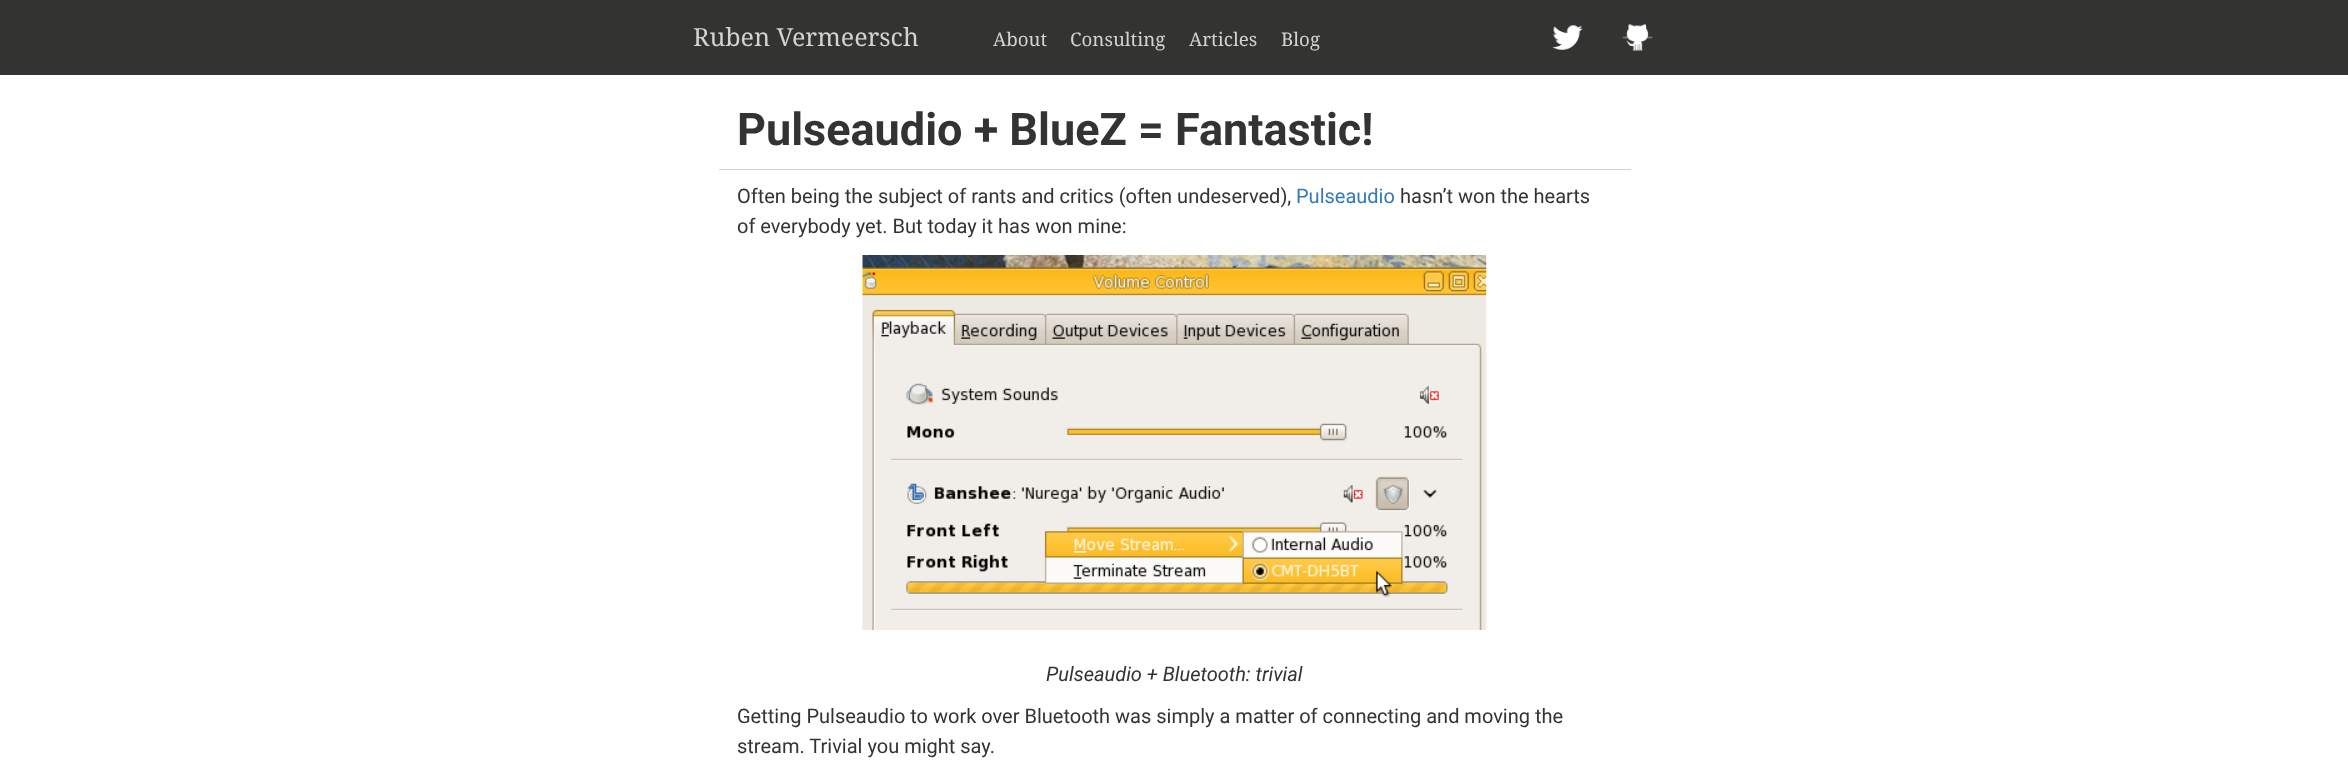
<!DOCTYPE html>
<meta charset="utf-8">
<style>body { margin: 0 } canvas { display: block }</style>
<canvas id="canvas" width="2348" height="777"></canvas>
<img id="img1" src="images/1.png" hidden>
<img id="img2" src="images/2.png" hidden>
<img id="img3" src="images/3.png" hidden>
<script>
window.onload = function () {
    const canvas = document.getElementById('canvas');
    const context = canvas.getContext('2d');
    context.miterLimit = 4;
    context.fontKerning = 'normal';

    context.fillStyle = 'rgb(51, 51, 50)';
    context.fillRect(0, 0, 2348, 777);
    context.drawImage(document.getElementById('img1'), 1552, 25, 31, 25);
    context.drawImage(document.getElementById('img2'), 1622, 24, 31, 27);
    context.fillStyle = 'rgb(255, 255, 255)';
    context.fillRect(0, 75, 2348, 702);
    context.fillStyle = 'rgb(212, 212, 206)';
    context.fillRect(719, 169, 912, 1);
    context.drawImage(document.getElementById('img3'), 862, 255, 625, 375);
    context.font = '25px Noto Serif';
    context.fillText('Ruben Vermeersch', 693, 46);
    context.font = '18.75px Noto Serif';
    context.fillText('About', 993, 46);
    context.fillText('Consulting', 1070, 46);
    context.fillText('Articles', 1189, 46);
    context.fillText('Blog', 1281, 46);
    context.font = 'bold 45px Roboto';
    context.fillStyle = 'rgb(51, 51, 51)';
    context.fillText('Pulseaudio + BlueZ = Fantastic!', 737, 145);
    context.font = '20px Roboto';
    context.fillText('Often being the subject of rants and critics (often undeserved),', 737, 203);
    context.fillStyle = 'rgb(51, 122, 183)';
    context.fillText('Pulseaudio', 1296, 203);
    context.fillStyle = 'rgb(51, 51, 51)';
    context.fillText('hasn’t won the hearts', 1400, 203);
    context.fillText('of everybody yet. But today it has won mine:', 737, 233);
    context.font = 'italic 20px Roboto';
    context.fillText('Pulseaudio + Bluetooth: trivial', 1046, 681);
    context.font = '20px Roboto';
    context.fillText('Getting Pulseaudio to work over Bluetooth was simply a matter of connecting and moving the', 737, 723);
    context.fillText('stream. Trivial you might say.', 737, 753);
};
</script>
